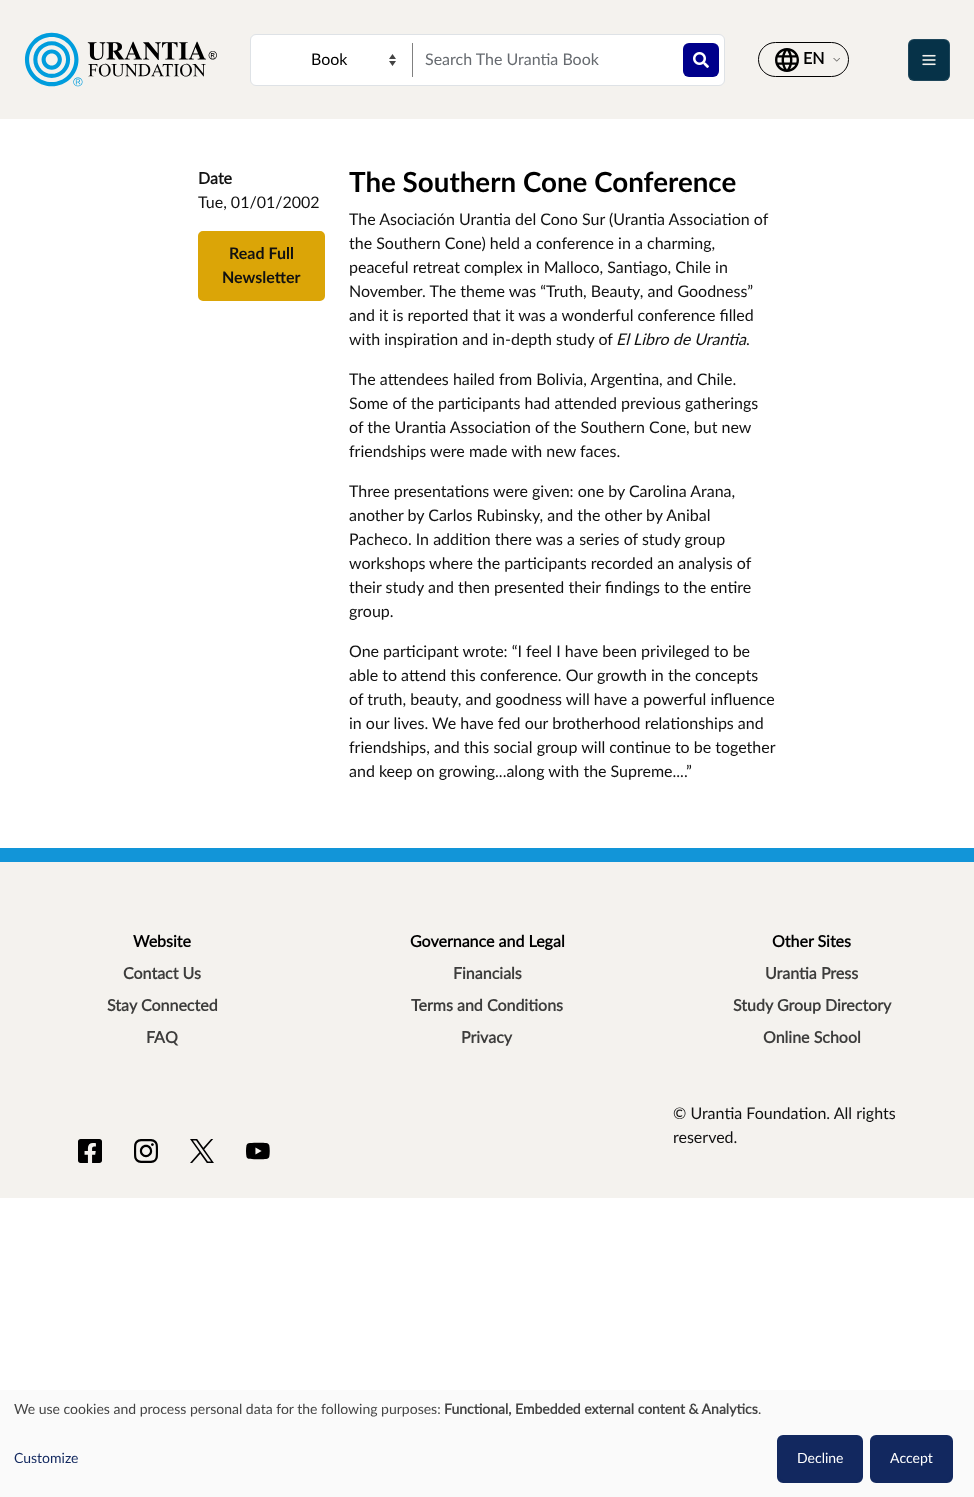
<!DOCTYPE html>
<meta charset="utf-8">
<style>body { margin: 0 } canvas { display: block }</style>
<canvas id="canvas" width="974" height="1497"></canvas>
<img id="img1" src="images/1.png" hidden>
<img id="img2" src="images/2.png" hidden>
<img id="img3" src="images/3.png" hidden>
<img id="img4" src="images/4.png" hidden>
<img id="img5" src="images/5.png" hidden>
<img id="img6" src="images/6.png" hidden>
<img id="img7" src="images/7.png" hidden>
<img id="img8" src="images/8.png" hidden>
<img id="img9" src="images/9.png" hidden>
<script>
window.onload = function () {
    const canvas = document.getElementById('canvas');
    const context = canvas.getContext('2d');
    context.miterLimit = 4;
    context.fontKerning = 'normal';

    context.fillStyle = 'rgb(255, 255, 255)';
    context.fillRect(0, 0, 974, 1497);
    context.fillStyle = 'rgb(244, 242, 238)';
    context.fillRect(0, 0, 974, 119);
    context.drawImage(document.getElementById('img1'), 24, 32, 193, 55);
    context.fillStyle = 'rgb(255, 255, 255)';
    context.beginPath();
    context.roundRect(250.5, 34.5, 474, 51, 5.5);
    context.fill();
    context.strokeStyle = 'rgb(222, 226, 230)';
    context.stroke();
    context.fillStyle = 'rgb(68, 68, 68)';
    context.beginPath();
    context.moveTo(389, 59);
    context.lineTo(392.5, 54);
    context.lineTo(396, 59);
    context.closePath();
    context.moveTo(396, 61);
    context.lineTo(392.5, 66);
    context.lineTo(389, 61);
    context.closePath();
    context.fill();
    context.fillStyle = 'rgb(128, 128, 128)';
    context.fillRect(412, 43, 1, 34);
    context.fillStyle = 'rgb(0, 0, 139)';
    context.beginPath();
    context.roundRect(683, 43, 36, 34, 6);
    context.fill();
    context.drawImage(document.getElementById('img2'), 693, 52, 16, 16);
    context.beginPath();
    context.roundRect(758.5, 42.5, 90, 34, 17);
    context.strokeStyle = 'rgb(0, 0, 0)';
    context.stroke();
    context.drawImage(document.getElementById('img3'), 775, 48, 24, 24);
    context.drawImage(document.getElementById('img4'), 833, 58, 7, 4);
    context.fillStyle = 'rgb(6, 50, 72)';
    context.beginPath();
    context.roundRect(908, 39, 42, 42, 6);
    context.fill();
    context.beginPath();
    context.roundRect(908.5, 39.5, 41, 41, 5.5);
    context.strokeStyle = 'rgba(255, 255, 255, 0.1)';
    context.stroke();
    context.drawImage(document.getElementById('img5'), 922, 54, 14, 12);
    context.fillStyle = 'rgb(219, 165, 7)';
    context.beginPath();
    context.roundRect(199, 232, 125, 68, 4);
    context.fill();
    context.strokeStyle = 'rgb(219, 165, 7)';
    context.lineWidth = 2;
    context.stroke();
    context.fillStyle = 'rgb(244, 242, 238)';
    context.fillRect(0, 862, 974, 336);
    context.fillStyle = 'rgb(18, 149, 216)';
    context.fillRect(0, 848, 974, 14);
    context.drawImage(document.getElementById('img6'), 78, 1139, 24, 24);
    context.drawImage(document.getElementById('img7'), 134, 1139, 24, 24);
    context.drawImage(document.getElementById('img8'), 190, 1139, 24, 24);
    context.drawImage(document.getElementById('img9'), 246, 1142, 24, 18);
    context.fillStyle = 'rgb(250, 250, 250)';
    context.fillRect(0, 1390, 974, 107);
    context.fillStyle = 'rgb(18, 40, 95)';
    context.beginPath();
    context.roundRect(778.5, 1436.5, 83, 45, 4.5);
    context.fill();
    context.strokeStyle = 'rgb(18, 40, 95)';
    context.lineWidth = 3;
    context.stroke();
    context.beginPath();
    context.roundRect(871.5, 1436.5, 80, 45, 4.5);
    context.fill();
    context.stroke();
    context.font = '16px Lato';
    context.fillStyle = 'rgb(0, 0, 0)';
    context.fillText('Book', 311, 65);
    context.fillStyle = 'rgb(103, 107, 112)';
    context.fillText('Search The Urantia Book', 425, 65);
    context.font = 'bold 16px Lato';
    context.fillStyle = 'rgb(0, 0, 0)';
    context.fillText('EN', 803, 64);
    context.fillStyle = 'rgb(17, 17, 17)';
    context.fillText('Date', 198, 184);
    context.font = '16px Lato';
    context.fillText('Tue, 01/01/2002', 198, 208);
    context.font = 'bold 16px "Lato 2"';
    context.fillText('Read Full', 229, 259);
    context.fillText('Newsletter', 222, 283);
    context.font = 'bold 27.75px "Lato 2"';
    context.fillStyle = 'rgb(0, 0, 0)';
    context.fillText('The Southern Cone Conference', 349, 192);
    context.font = '16px Lato';
    context.fillStyle = 'rgb(17, 17, 17)';
    context.fillText('The Asociación Urantia del Cono Sur (Urantia Association of', 349, 225);
    context.fillText('the Southern Cone) held a conference in a charming,', 349, 249);
    context.fillText('peaceful retreat complex in Malloco, Santiago, Chile in', 349, 273);
    context.fillText('November. The theme was “Truth, Beauty, and Goodness”', 349, 297);
    context.fillText('and it is reported that it was a wonderful conference filled', 349, 321);
    context.fillText('with inspiration and in-depth study of', 349, 345);
    context.font = 'italic 16px Lato';
    context.fillText('El Libro de Urantia', 616, 345);
    context.font = '16px Lato';
    context.fillText('.', 746, 345);
    context.fillText('The attendees hailed from Bolivia, Argentina, and Chile.', 349, 385);
    context.fillText('Some of the participants had attended previous gatherings', 349, 409);
    context.fillText('of the Urantia Association of the Southern Cone, but new', 349, 433);
    context.fillText('friendships were made with new faces.', 349, 457);
    context.fillText('Three presentations were given: one by Carolina Arana,', 349, 497);
    context.fillText('another by Carlos Rubinsky, and the other by Anibal', 349, 521);
    context.fillText('Pacheco. In addition there was a series of study group', 349, 545);
    context.fillText('workshops where the participants recorded an analysis of', 349, 569);
    context.fillText('their study and then presented their findings to the entire', 349, 593);
    context.fillText('group.', 349, 617);
    context.fillText('One participant wrote: “I feel I have been privileged to be', 349, 657);
    context.fillText('able to attend this conference. Our growth in the concepts', 349, 681);
    context.fillText('of truth, beauty, and goodness will have a powerful influence', 349, 705);
    context.fillText('in our lives. We have fed our brotherhood relationships and', 349, 729);
    context.fillText('friendships, and this social group will continue to be together', 349, 753);
    context.fillText('and keep on growing...along with the Supreme....”', 349, 777);
    context.font = 'bold 16px Lato';
    context.fillStyle = 'rgb(0, 0, 0)';
    context.fillText('Website', 133, 947);
    context.fillStyle = 'rgb(61, 61, 60)';
    context.fillText('Contact Us', 123, 979);
    context.fillText('Stay Connected', 107, 1011);
    context.fillText('FAQ', 146, 1043);
    context.fillStyle = 'rgb(0, 0, 0)';
    context.fillText('Governance and Legal', 410, 947);
    context.fillStyle = 'rgb(61, 61, 60)';
    context.fillText('Financials', 453, 979);
    context.fillText('Terms and Conditions', 411, 1011);
    context.fillText('Privacy', 461, 1043);
    context.fillStyle = 'rgb(0, 0, 0)';
    context.fillText('Other Sites', 772, 947);
    context.fillStyle = 'rgb(61, 61, 60)';
    context.fillText('Urantia Press', 765, 979);
    context.fillText('Study Group Directory', 733, 1011);
    context.fillText('Online School', 763, 1043);
    context.font = '16px Lato';
    context.fillStyle = 'rgb(17, 17, 17)';
    context.fillText('© Urantia Foundation. All rights', 673, 1119);
    context.fillText('reserved.', 673, 1143);
    context.font = '14px Lato';
    context.fillStyle = 'rgb(68, 68, 68)';
    context.fillText('We use cookies and process personal data for the following purposes:', 14, 1414);
    context.font = 'bold 14px Lato';
    context.fillText('Functional, Embedded external content & Analytics', 444, 1414);
    context.font = '14px Lato';
    context.fillText('.', 758, 1414);
    context.fillStyle = 'rgb(18, 40, 95)';
    context.fillText('Customize', 14, 1463);
    context.fillStyle = 'rgb(255, 255, 255)';
    context.fillText('Decline', 797, 1463);
    context.fillText('Accept', 890, 1463);
};
</script>
